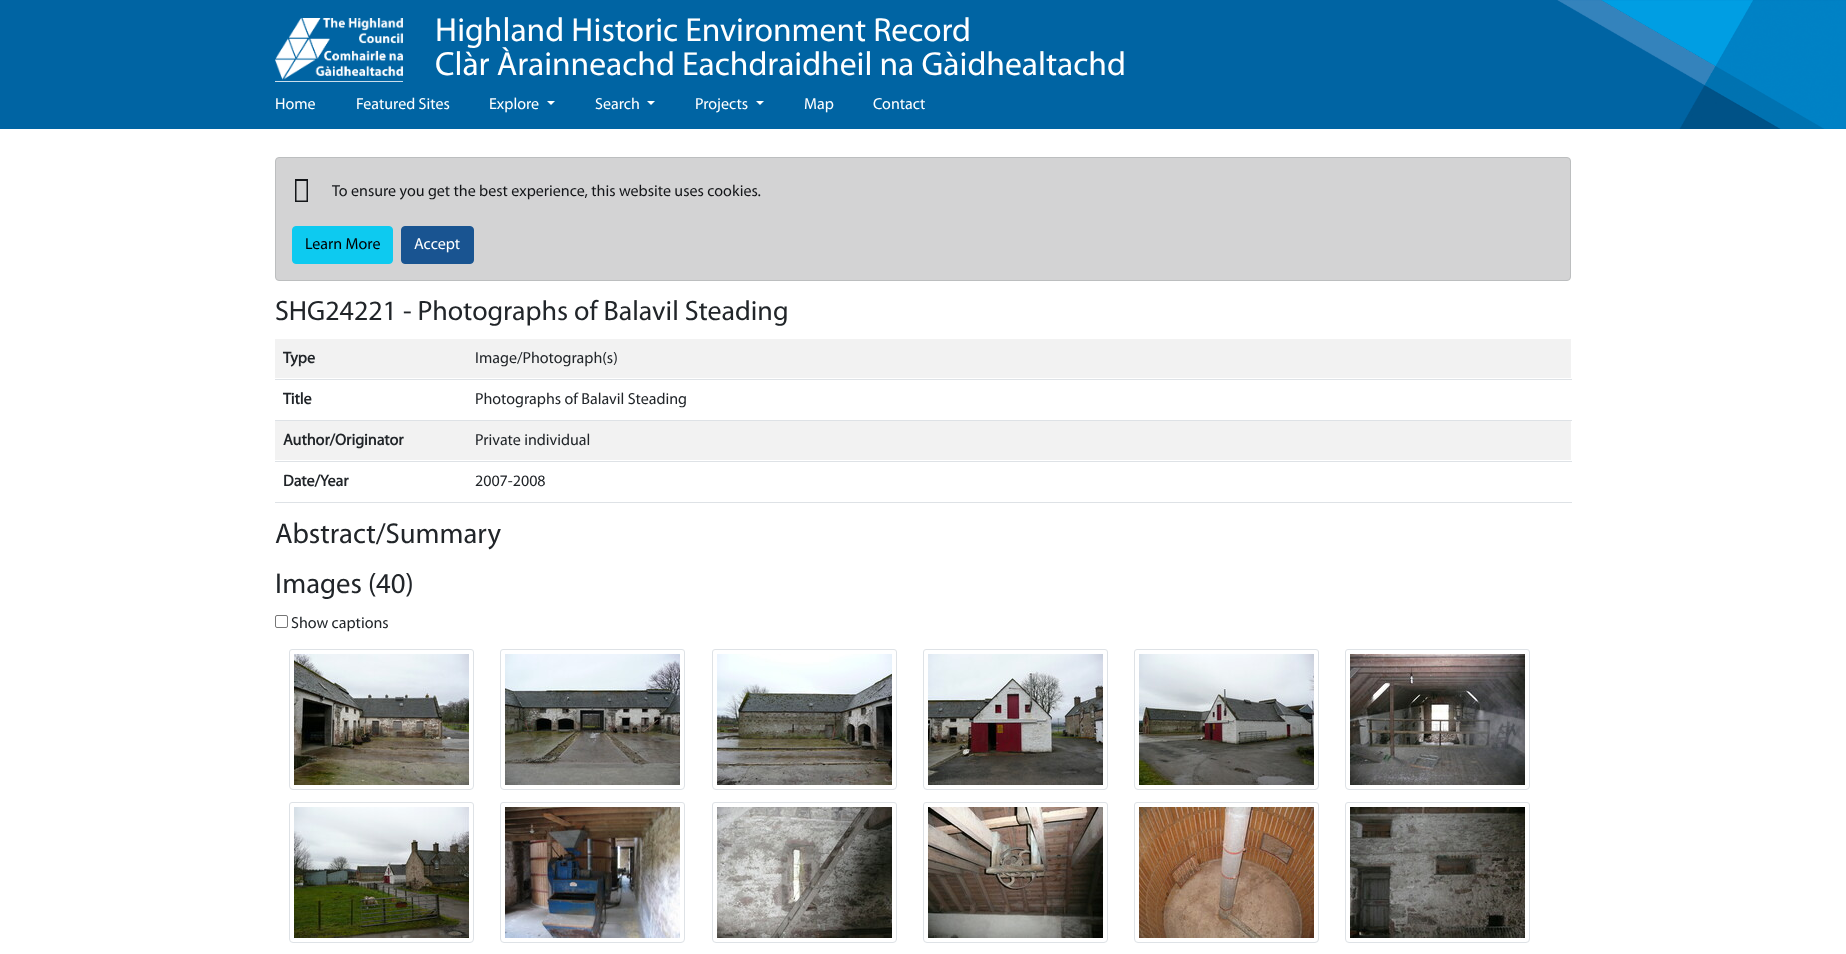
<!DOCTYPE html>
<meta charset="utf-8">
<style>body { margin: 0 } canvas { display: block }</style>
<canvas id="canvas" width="1846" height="954"></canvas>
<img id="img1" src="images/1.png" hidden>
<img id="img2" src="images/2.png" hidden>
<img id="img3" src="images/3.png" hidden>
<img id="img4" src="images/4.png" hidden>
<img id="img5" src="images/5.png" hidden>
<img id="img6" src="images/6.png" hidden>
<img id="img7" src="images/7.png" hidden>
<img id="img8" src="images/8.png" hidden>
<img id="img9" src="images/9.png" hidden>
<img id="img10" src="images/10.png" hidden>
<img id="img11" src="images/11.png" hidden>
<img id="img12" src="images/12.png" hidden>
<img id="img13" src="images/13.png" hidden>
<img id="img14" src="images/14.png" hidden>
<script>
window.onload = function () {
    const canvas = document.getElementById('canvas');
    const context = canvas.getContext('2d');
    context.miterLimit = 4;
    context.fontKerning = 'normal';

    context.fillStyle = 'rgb(255, 255, 255)';
    context.fillRect(0, 0, 1846, 954);
    context.fillStyle = 'rgb(0, 100, 163)';
    context.fillRect(0, 0, 1846, 129);
    context.drawImage(document.getElementById('img1'), 1557, 0, 289, 129);
    context.drawImage(document.getElementById('img2'), 275, 18, 128, 64);
    context.fillStyle = 'rgb(255, 255, 255)';
    context.beginPath();
    context.moveTo(547, 101);
    context.lineTo(555, 101);
    context.lineTo(551, 105);
    context.closePath();
    context.fill();
    context.beginPath();
    context.moveTo(647, 101);
    context.lineTo(655, 101);
    context.lineTo(651, 105);
    context.closePath();
    context.fill();
    context.beginPath();
    context.moveTo(756, 101);
    context.lineTo(764, 101);
    context.lineTo(760, 105);
    context.closePath();
    context.fill();
    context.fillStyle = 'rgb(211, 211, 212)';
    context.beginPath();
    context.roundRect(275.5, 157.5, 1295, 123, 3.5);
    context.fill();
    context.strokeStyle = 'rgb(188, 190, 191)';
    context.stroke();
    context.fillStyle = 'rgb(20, 22, 25)';
    context.beginPath();
    context.moveTo(295, 202);
    context.lineTo(295, 179);
    context.lineTo(308, 179);
    context.lineTo(308, 202);
    context.closePath();
    context.moveTo(296.5, 200.5);
    context.lineTo(306.5, 200.5);
    context.lineTo(306.5, 181);
    context.lineTo(296.5, 181);
    context.closePath();
    context.fill();
    context.fillStyle = 'rgb(13, 202, 240)';
    context.beginPath();
    context.roundRect(292.5, 226.5, 100, 37, 3.5);
    context.fill();
    context.strokeStyle = 'rgb(13, 202, 240)';
    context.stroke();
    context.fillStyle = 'rgb(25, 84, 145)';
    context.beginPath();
    context.roundRect(401.5, 226.5, 72, 37, 3.5);
    context.fill();
    context.strokeStyle = 'rgb(25, 84, 145)';
    context.stroke();
    context.fillStyle = 'rgb(242, 242, 242)';
    context.fillRect(275, 339, 1296, 39);
    context.fillStyle = 'rgb(222, 226, 230)';
    context.fillRect(275, 379, 1297, 1);
    context.fillRect(275, 420, 1297, 1);
    context.fillStyle = 'rgb(242, 242, 242)';
    context.fillRect(275, 421, 1296, 39);
    context.fillStyle = 'rgb(222, 226, 230)';
    context.fillRect(275, 461, 1297, 1);
    context.fillRect(275, 502, 1297, 1);
    context.beginPath();
    context.roundRect(275.5, 615.5, 12, 12, 1.5);
    context.strokeStyle = 'rgb(118, 118, 118)';
    context.stroke();
    context.beginPath();
    context.roundRect(289.5, 649.5, 184, 140, [2.5, 2.5, 3.5, 3.5]);
    context.strokeStyle = 'rgb(222, 226, 230)';
    context.stroke();
    context.drawImage(document.getElementById('img3'), 294, 654, 175, 131);
    context.beginPath();
    context.roundRect(500.5, 649.5, 184, 140, [2.5, 2.5, 3.5, 3.5]);
    context.stroke();
    context.drawImage(document.getElementById('img4'), 505, 654, 175, 131);
    context.beginPath();
    context.roundRect(712.5, 649.5, 184, 140, [2.5, 2.5, 3.5, 3.5]);
    context.stroke();
    context.drawImage(document.getElementById('img5'), 717, 654, 175, 131);
    context.beginPath();
    context.roundRect(923.5, 649.5, 184, 140, [2.5, 2.5, 3.5, 3.5]);
    context.stroke();
    context.drawImage(document.getElementById('img6'), 928, 654, 175, 131);
    context.beginPath();
    context.roundRect(1134.5, 649.5, 184, 140, [2.5, 2.5, 3.5, 3.5]);
    context.stroke();
    context.drawImage(document.getElementById('img7'), 1139, 654, 175, 131);
    context.beginPath();
    context.roundRect(1345.5, 649.5, 184, 140, [2.5, 2.5, 3.5, 3.5]);
    context.stroke();
    context.drawImage(document.getElementById('img8'), 1350, 654, 175, 131);
    context.beginPath();
    context.roundRect(289.5, 802.5, 184, 140, [2.5, 2.5, 3.5, 3.5]);
    context.stroke();
    context.drawImage(document.getElementById('img9'), 294, 807, 175, 131);
    context.beginPath();
    context.roundRect(500.5, 802.5, 184, 140, [2.5, 2.5, 3.5, 3.5]);
    context.stroke();
    context.drawImage(document.getElementById('img10'), 505, 807, 175, 131);
    context.beginPath();
    context.roundRect(712.5, 802.5, 184, 140, [2.5, 2.5, 3.5, 3.5]);
    context.stroke();
    context.drawImage(document.getElementById('img11'), 717, 807, 175, 131);
    context.beginPath();
    context.roundRect(923.5, 802.5, 184, 140, [2.5, 2.5, 3.5, 3.5]);
    context.stroke();
    context.drawImage(document.getElementById('img12'), 928, 807, 175, 131);
    context.beginPath();
    context.roundRect(1134.5, 802.5, 184, 140, [2.5, 2.5, 3.5, 3.5]);
    context.stroke();
    context.drawImage(document.getElementById('img13'), 1139, 807, 175, 131);
    context.beginPath();
    context.roundRect(1345.5, 802.5, 184, 140, [2.5, 2.5, 3.5, 3.5]);
    context.stroke();
    context.drawImage(document.getElementById('img14'), 1350, 807, 175, 131);
    context.font = '33.6px Myriad';
    context.fillStyle = 'rgb(255, 255, 255)';
    context.fillText('Highland Historic Environment Record', 435, 41);
    context.fillText('Clàr Àrainneachd Eachdraidheil na Gàidhealtachd', 435, 75);
    context.font = '16px Myriad';
    context.fillText('Home', 275, 109);
    context.fillText('Featured Sites', 356, 109);
    context.fillText('Explore', 489, 109);
    context.fillText('Search', 595, 109);
    context.fillText('Projects', 695, 109);
    context.fillText('Map', 804, 109);
    context.fillText('Contact', 873, 109);
    context.fillStyle = 'rgb(20, 22, 25)';
    context.fillText('To ensure you get the best experience, this website uses cookies.', 332, 196);
    context.fillStyle = 'rgb(0, 0, 0)';
    context.fillText('Learn More', 305, 249);
    context.fillStyle = 'rgb(255, 255, 255)';
    context.fillText('Accept', 414, 249);
    context.font = '28px Myriad';
    context.fillStyle = 'rgb(33, 37, 41)';
    context.fillText('SHG24221 - Photographs of Balavil Steading', 275, 320);
    context.font = 'bold 16px Myriad';
    context.fillText('Type', 283, 363);
    context.font = '16px Myriad';
    context.fillText('Image/Photograph(s)', 475, 363);
    context.font = 'bold 16px Myriad';
    context.fillText('Title', 283, 404);
    context.font = '16px Myriad';
    context.fillText('Photographs of Balavil Steading', 475, 404);
    context.font = 'bold 16px Myriad';
    context.fillText('Author/Originator', 283, 445);
    context.font = '16px Myriad';
    context.fillText('Private individual', 475, 445);
    context.font = 'bold 16px Myriad';
    context.fillText('Date/Year', 283, 486);
    context.font = '16px Myriad';
    context.fillText('2007-2008', 475, 486);
    context.font = '28.75px Myriad';
    context.fillText('Abstract/Summary', 275, 543);
    context.fillText('Images (40)', 275, 593);
    context.font = '16px Myriad';
    context.fillText('Show captions', 291, 628);
};
</script>
